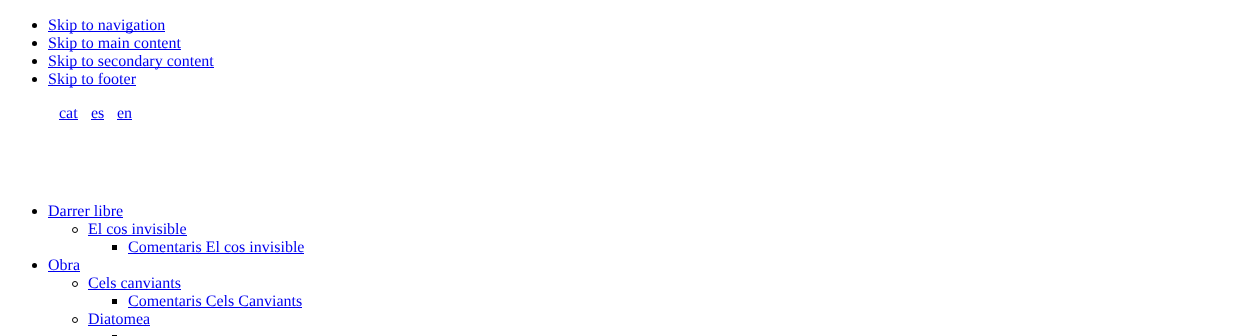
<!DOCTYPE html>
<meta charset="utf-8">
<style>body { margin: 0 } canvas { display: block }</style>
<canvas id="canvas" width="1237" height="336"></canvas>
<script>
window.onload = function () {
    const canvas = document.getElementById('canvas');
    const context = canvas.getContext('2d');
    context.miterLimit = 4;
    context.fontKerning = 'normal';

    context.fillStyle = 'rgb(255, 255, 255)';
    context.fillRect(0, 0, 1237, 336);
    context.fillStyle = 'rgb(0, 0, 0)';
    context.beginPath();
    context.arc(34.5, 25.5, 2.5, 0, 2 * Math.PI);
    context.fill();
    context.fillStyle = 'rgb(0, 0, 238)';
    context.fillRect(48, 31, 117, 1);
    context.fillStyle = 'rgb(0, 0, 0)';
    context.beginPath();
    context.arc(34.5, 43.5, 2.5, 0, 2 * Math.PI);
    context.fill();
    context.fillStyle = 'rgb(0, 0, 238)';
    context.fillRect(48, 49, 133, 1);
    context.fillStyle = 'rgb(0, 0, 0)';
    context.beginPath();
    context.arc(34.5, 61.5, 2.5, 0, 2 * Math.PI);
    context.fill();
    context.fillStyle = 'rgb(0, 0, 238)';
    context.fillRect(48, 67, 166, 1);
    context.fillStyle = 'rgb(0, 0, 0)';
    context.beginPath();
    context.arc(34.5, 79.5, 2.5, 0, 2 * Math.PI);
    context.fill();
    context.fillStyle = 'rgb(0, 0, 238)';
    context.fillRect(48, 85, 88, 1);
    context.fillRect(59, 119, 19, 1);
    context.fillRect(91, 119, 13, 1);
    context.fillRect(117, 119, 15, 1);
    context.fillStyle = 'rgb(0, 0, 0)';
    context.beginPath();
    context.arc(34.5, 211.5, 2.5, 0, 2 * Math.PI);
    context.fill();
    context.fillStyle = 'rgb(0, 0, 238)';
    context.fillRect(48, 217, 75, 1);
    context.beginPath();
    context.arc(75, 230, 2.5, 0, 2 * Math.PI);
    context.strokeStyle = 'rgb(0, 0, 0)';
    context.stroke();
    context.fillRect(88, 235, 99, 1);
    context.fillStyle = 'rgb(0, 0, 0)';
    context.fillRect(112, 245, 5, 5);
    context.fillStyle = 'rgb(0, 0, 238)';
    context.fillRect(128, 253, 176, 1);
    context.fillStyle = 'rgb(0, 0, 0)';
    context.beginPath();
    context.arc(34.5, 265.5, 2.5, 0, 2 * Math.PI);
    context.fill();
    context.fillStyle = 'rgb(0, 0, 238)';
    context.fillRect(48, 271, 32, 1);
    context.beginPath();
    context.arc(75, 284, 2.5, 0, 2 * Math.PI);
    context.stroke();
    context.fillRect(88, 289, 93, 1);
    context.fillStyle = 'rgb(0, 0, 0)';
    context.fillRect(112, 299, 5, 5);
    context.fillStyle = 'rgb(0, 0, 238)';
    context.fillRect(128, 307, 174, 1);
    context.beginPath();
    context.arc(75, 320, 2.5, 0, 2 * Math.PI);
    context.stroke();
    context.fillRect(88, 325, 62, 1);
    context.fillStyle = 'rgb(0, 0, 0)';
    context.fillRect(112, 335, 5, 1);
    context.font = '16px Liberation Serif';
    context.fillStyle = 'rgb(0, 0, 238)';
    context.fillText('Skip to navigation', 48, 30);
    context.fillText('Skip to main content', 48, 48);
    context.fillText('Skip to secondary content', 48, 66);
    context.fillText('Skip to footer', 48, 84);
    context.fillText('cat', 59, 118);
    context.fillText('es', 91, 118);
    context.fillText('en', 117, 118);
    context.fillText('Darrer libre', 48, 216);
    context.fillText('El cos invisible', 88, 234);
    context.fillText('Comentaris El cos invisible', 128, 252);
    context.fillText('Obra', 48, 270);
    context.fillText('Cels canviants', 88, 288);
    context.fillText('Comentaris Cels Canviants', 128, 306);
    context.fillText('Diatomea', 88, 324);
};
</script>
